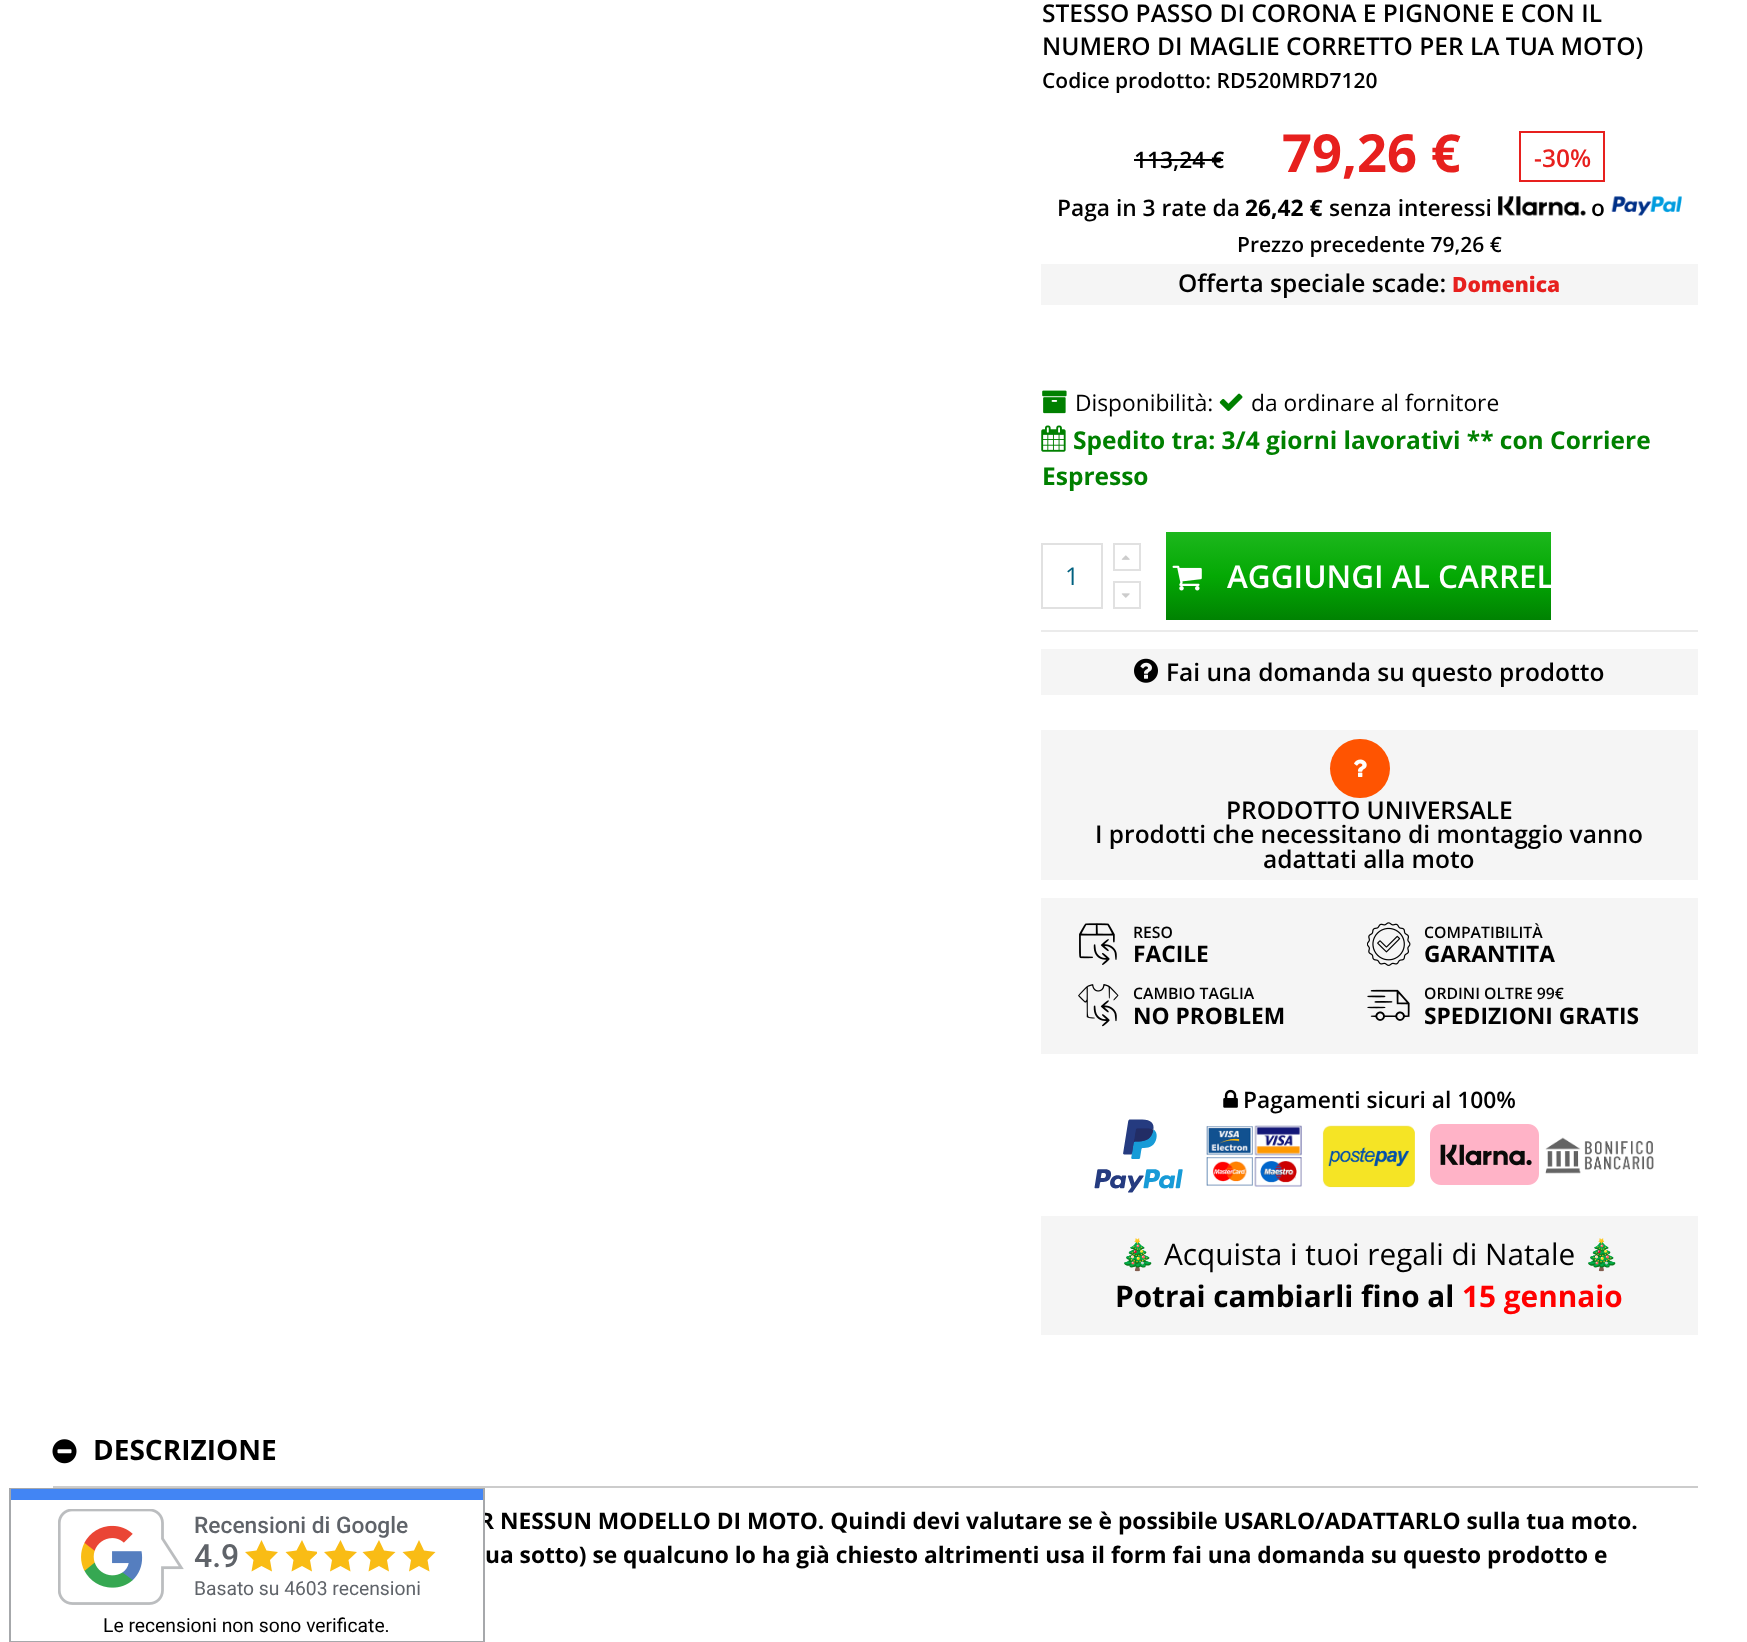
<!DOCTYPE html>
<meta charset="utf-8">
<style>body { margin: 0 } canvas { display: block }</style>
<canvas id="canvas" width="1747" height="1642"></canvas>
<img id="img1" src="images/1.png" hidden>
<img id="img2" src="images/2.png" hidden>
<img id="img3" src="images/3.png" hidden>
<img id="img4" src="images/4.png" hidden>
<img id="img5" src="images/5.png" hidden>
<img id="img6" src="images/6.png" hidden>
<img id="img7" src="images/7.png" hidden>
<img id="img8" src="images/8.png" hidden>
<img id="img9" src="images/9.png" hidden>
<img id="img10" src="images/10.png" hidden>
<img id="img11" src="images/11.png" hidden>
<img id="img12" src="images/12.png" hidden>
<img id="img13" src="images/13.png" hidden>
<img id="img14" src="images/14.png" hidden>
<img id="img15" src="images/15.png" hidden>
<img id="img16" src="images/16.png" hidden>
<img id="img17" src="images/17.png" hidden>
<img id="img18" src="images/18.png" hidden>
<img id="img19" src="images/19.png" hidden>
<img id="img20" src="images/20.png" hidden>
<img id="img21" src="images/21.png" hidden>
<img id="img22" src="images/22.png" hidden>
<script>
window.onload = function () {
    const canvas = document.getElementById('canvas');
    const context = canvas.getContext('2d');
    context.miterLimit = 4;
    context.fontKerning = 'normal';
    let gradient;

    context.fillStyle = 'rgb(255, 255, 255)';
    context.fillRect(0, 0, 1747, 1642);
    context.fillStyle = 'rgb(0, 0, 0)';
    context.fillRect(1134, 159, 89, 2);
    context.strokeStyle = 'rgb(231, 32, 30)';
    context.lineWidth = 2;
    context.strokeRect(1520, 132, 84, 49);
    context.drawImage(document.getElementById('img1'), 1498, 196, 88, 20);
    context.drawImage(document.getElementById('img2'), 1611, 196, 71, 20);
    context.fillStyle = 'rgb(245, 245, 245)';
    context.fillRect(1041, 264, 657, 41);
    context.drawImage(document.getElementById('img3'), 1042, 390, 25, 24);
    context.drawImage(document.getElementById('img4'), 1219, 393, 24, 18);
    context.drawImage(document.getElementById('img5'), 1041, 425, 25, 27);
    context.fillStyle = 'rgb(235, 235, 235)';
    context.fillRect(1041, 630, 657, 2);
    context.strokeStyle = 'rgb(225, 225, 225)';
    context.strokeRect(1042, 544, 60, 64);
    context.strokeRect(1114, 544, 26, 26);
    context.drawImage(document.getElementById('img6'), 1121, 555, 9, 5);
    context.strokeRect(1114, 582, 26, 26);
    context.drawImage(document.getElementById('img7'), 1121, 593, 9, 5);
    gradient = context.createLinearGradient(1358, 532, 1358, 620);
    gradient.addColorStop(0, 'rgb(29, 183, 29)');
    gradient.addColorStop(0.5, 'rgb(4, 169, 4)');
    gradient.addColorStop(1, 'rgb(0, 130, 2)');
    context.fillStyle = gradient;
    context.fillRect(1166, 532, 385, 88);
    context.drawImage(document.getElementById('img8'), 1172, 565, 30, 26);
    context.fillStyle = 'rgb(245, 245, 245)';
    context.fillRect(1041, 649, 657, 46);
    context.drawImage(document.getElementById('img9'), 1134, 658, 24, 25);
    context.fillRect(1041, 730, 657, 150);
    context.fillStyle = 'rgb(255, 84, 1)';
    context.beginPath();
    context.roundRect(1330, 739, 60, 59, 29.5);
    context.fill();
    context.drawImage(document.getElementById('img10'), 1354, 759, 13, 18);
    context.fillStyle = 'rgb(245, 245, 245)';
    context.fillRect(1041, 898, 657, 156);
    context.drawImage(document.getElementById('img11'), 1079, 923, 38, 42);
    context.drawImage(document.getElementById('img12'), 1367, 922, 44, 44);
    context.drawImage(document.getElementById('img13'), 1078, 984, 41, 43);
    context.drawImage(document.getElementById('img14'), 1367, 989, 43, 32);
    context.drawImage(document.getElementById('img15'), 1223, 1089, 15, 19);
    context.drawImage(document.getElementById('img16'), 1094, 1119, 89, 74);
    context.drawImage(document.getElementById('img17'), 1206, 1125, 96, 62);
    context.drawImage(document.getElementById('img18'), 1322, 1125, 93, 63);
    context.drawImage(document.getElementById('img19'), 1430, 1124, 109, 61);
    context.drawImage(document.getElementById('img20'), 1545, 1137, 109, 37);
    context.fillRect(1041, 1216, 657, 119);
    context.fillStyle = 'rgb(204, 204, 204)';
    context.fillRect(53, 1486, 1645, 2);
    context.drawImage(document.getElementById('img21'), 52, 1439, 25, 25);
    context.font = '600 24.5px Open Sans';
    context.fillStyle = 'rgb(0, 0, 0)';
    context.fillText('STESSO PASSO DI CORONA E PIGNONE E CON IL', 1042, 22);
    context.fillText('NUMERO DI MAGLIE CORRETTO PER LA TUA MOTO)', 1042, 55);
    context.font = '600 21px Open Sans';
    context.fillText('Codice prodotto: RD520MRD7120', 1042, 88);
    context.font = '600 22.75px Open Sans';
    context.fillText('113,24 €', 1134, 168);
    context.font = 'bold 52.5px Open Sans';
    context.fillStyle = 'rgb(231, 32, 30)';
    context.fillText('79,26 €', 1282, 172);
    context.font = '600 24.5px Open Sans';
    context.fillText('-30%', 1534, 167);
    context.font = '600 22.75px Open Sans';
    context.fillStyle = 'rgb(0, 0, 0)';
    context.fillText('Paga in 3 rate da', 1057, 216);
    context.font = 'bold 22.75px Open Sans';
    context.fillText('26,42 €', 1245, 216);
    context.font = '600 22.75px Open Sans';
    context.fillText('senza interessi', 1329, 216);
    context.fillText('o', 1591, 216);
    context.font = '600 21px Open Sans';
    context.fillText('Prezzo precedente 79,26 €', 1237, 252);
    context.font = '600 24.5px Open Sans';
    context.fillText('Offerta speciale scade:', 1178, 292);
    context.font = '800 21px Open Sans';
    context.fillStyle = 'rgb(231, 32, 30)';
    context.fillText('Domenica', 1452, 292);
    context.font = '22.75px Open Sans';
    context.fillStyle = 'rgb(0, 0, 0)';
    context.fillText('Disponibilità:', 1075, 411);
    context.fillText('da ordinare al fornitore', 1251, 411);
    context.font = 'bold 24.5px Open Sans';
    context.fillStyle = 'rgb(0, 128, 0)';
    context.fillText('Spedito tra: 3/4 giorni lavorativi ** con Corriere', 1073, 449);
    context.fillText('Espresso', 1042, 485);
    context.font = '24.5px Open Sans';
    context.fillStyle = 'rgb(0, 96, 127)';
    context.fillText('1', 1065, 585);
    context.font = '600 31.5px Open Sans';
    context.fillStyle = 'rgb(255, 255, 255)';
    context.fillText('AGGIUNGI AL CARREL', 1227, 588);
    context.font = '600 24.5px Open Sans';
    context.fillStyle = 'rgb(0, 0, 0)';
    context.fillText('Fai una domanda su questo prodotto', 1166, 681);
    context.fillText('PRODOTTO UNIVERSALE', 1226, 819);
    context.fillText('I prodotti che necessitano di montaggio vanno', 1095, 843);
    context.fillText('adattati alla moto', 1263, 868);
    context.font = '600 15.75px Open Sans';
    context.fillText('RESO', 1133, 938);
    context.font = 'bold 22.75px Open Sans';
    context.fillText('FACILE', 1133, 962);
    context.font = '600 15.75px Open Sans';
    context.fillText('COMPATIBILITÀ', 1424, 938);
    context.font = 'bold 22.75px Open Sans';
    context.fillText('GARANTITA', 1424, 962);
    context.font = '600 15.75px Open Sans';
    context.fillText('CAMBIO TAGLIA', 1133, 999);
    context.font = 'bold 22.75px Open Sans';
    context.fillText('NO PROBLEM', 1133, 1024);
    context.font = '600 15.75px Open Sans';
    context.fillText('ORDINI OLTRE 99€', 1424, 999);
    context.font = 'bold 22.75px Open Sans';
    context.fillText('SPEDIZIONI GRATIS', 1424, 1024);
    context.font = '600 22.75px Open Sans';
    context.fillText('Pagamenti sicuri al 100%', 1243, 1108);
    context.font = '29.75px Noto Color Emoji';
    context.fillText('🎄', 1119, 1265);
    context.font = '29.75px Open Sans';
    context.fillText('Acquista i tuoi regali di Natale', 1164, 1265);
    context.font = '29.75px Noto Color Emoji';
    context.fillText('🎄', 1583, 1265);
    context.font = 'bold 29.75px Open Sans';
    context.fillText('Potrai cambiarli fino al', 1115, 1307);
    context.fillStyle = 'rgb(255, 0, 0)';
    context.fillText('15 gennaio', 1462, 1307);
    context.font = 'bold 28px Open Sans';
    context.fillStyle = 'rgb(0, 0, 0)';
    context.fillText('DESCRIZIONE', 93, 1460);
    context.font = 'bold 22.75px Open Sans';
    context.fillText('R NESSUN MODELLO DI MOTO. Quindi devi valutare se è possibile USARLO/ADATTARLO sulla tua moto.', 479, 1529);
    context.fillText('ua sotto) se qualcuno lo ha già chiesto altrimenti usa il form fai una domanda su questo prodotto e', 485, 1563);
    context.strokeStyle = 'rgb(166, 168, 171)';
    context.strokeRect(10, 1489, 474, 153);
    context.fillStyle = 'rgb(255, 255, 255)';
    context.fillRect(481, 1512, 2, 17);
    context.fillStyle = 'rgb(66, 133, 244)';
    context.fillRect(11, 1489, 472, 11);
    context.drawImage(document.getElementById('img22'), 58, 1509, 126, 96);
    context.font = '500 22.75px Roboto';
    context.fillStyle = 'rgb(95, 99, 105)';
    context.fillText('Recensioni di Google', 194, 1533);
    context.font = '500 32px Roboto';
    context.fillText('4.9', 194, 1567);
    context.fillStyle = 'rgb(249, 188, 21)';
    context.beginPath();
    context.moveTo(261.5, 1540);
    context.lineTo(266.5, 1550.5);
    context.lineTo(278, 1552);
    context.lineTo(270, 1560);
    context.lineTo(272, 1571.5);
    context.lineTo(261.5, 1566);
    context.lineTo(251.5, 1571.5);
    context.lineTo(253.5, 1560);
    context.lineTo(245, 1552);
    context.lineTo(256.5, 1550.5);
    context.closePath();
    context.fill();
    context.save();
    context.beginPath();
    context.rect(285, 1540, 32, 32);
    context.clip();
    context.beginPath();
    context.moveTo(302, 1540);
    context.lineTo(307, 1550.5);
    context.lineTo(318.5, 1552);
    context.lineTo(310, 1560);
    context.lineTo(312, 1571.5);
    context.lineTo(302, 1566);
    context.lineTo(291.5, 1571.5);
    context.lineTo(293.5, 1560);
    context.lineTo(285.5, 1552);
    context.lineTo(296.5, 1550.5);
    context.closePath();
    context.fill();
    context.restore();
    context.beginPath();
    context.moveTo(340.5, 1540);
    context.lineTo(345.5, 1550.5);
    context.lineTo(357, 1552);
    context.lineTo(348.5, 1560);
    context.lineTo(350.5, 1571.5);
    context.lineTo(340.5, 1566);
    context.lineTo(330, 1571.5);
    context.lineTo(332, 1560);
    context.lineTo(324, 1552);
    context.lineTo(335, 1550.5);
    context.closePath();
    context.fill();
    context.beginPath();
    context.moveTo(379, 1540);
    context.lineTo(384, 1550.5);
    context.lineTo(395.5, 1552);
    context.lineTo(387, 1560);
    context.lineTo(389, 1571.5);
    context.lineTo(379, 1566);
    context.lineTo(368.5, 1571.5);
    context.lineTo(370.5, 1560);
    context.lineTo(362.5, 1552);
    context.lineTo(373.5, 1550.5);
    context.closePath();
    context.fill();
    context.beginPath();
    context.moveTo(419, 1540);
    context.lineTo(424, 1550.5);
    context.lineTo(435.5, 1552);
    context.lineTo(427.5, 1560);
    context.lineTo(429.5, 1571.5);
    context.lineTo(419, 1566);
    context.lineTo(409, 1571.5);
    context.lineTo(411, 1560);
    context.lineTo(402.5, 1552);
    context.lineTo(414, 1550.5);
    context.closePath();
    context.fill();
    context.font = '19.3px Roboto';
    context.fillStyle = 'rgb(95, 99, 105)';
    context.fillText('Basato su 4603 recensioni', 194, 1595);
    context.fillStyle = 'rgb(0, 0, 0)';
    context.fillText('Le recensioni non sono verificate.', 103, 1632);
};
</script>
